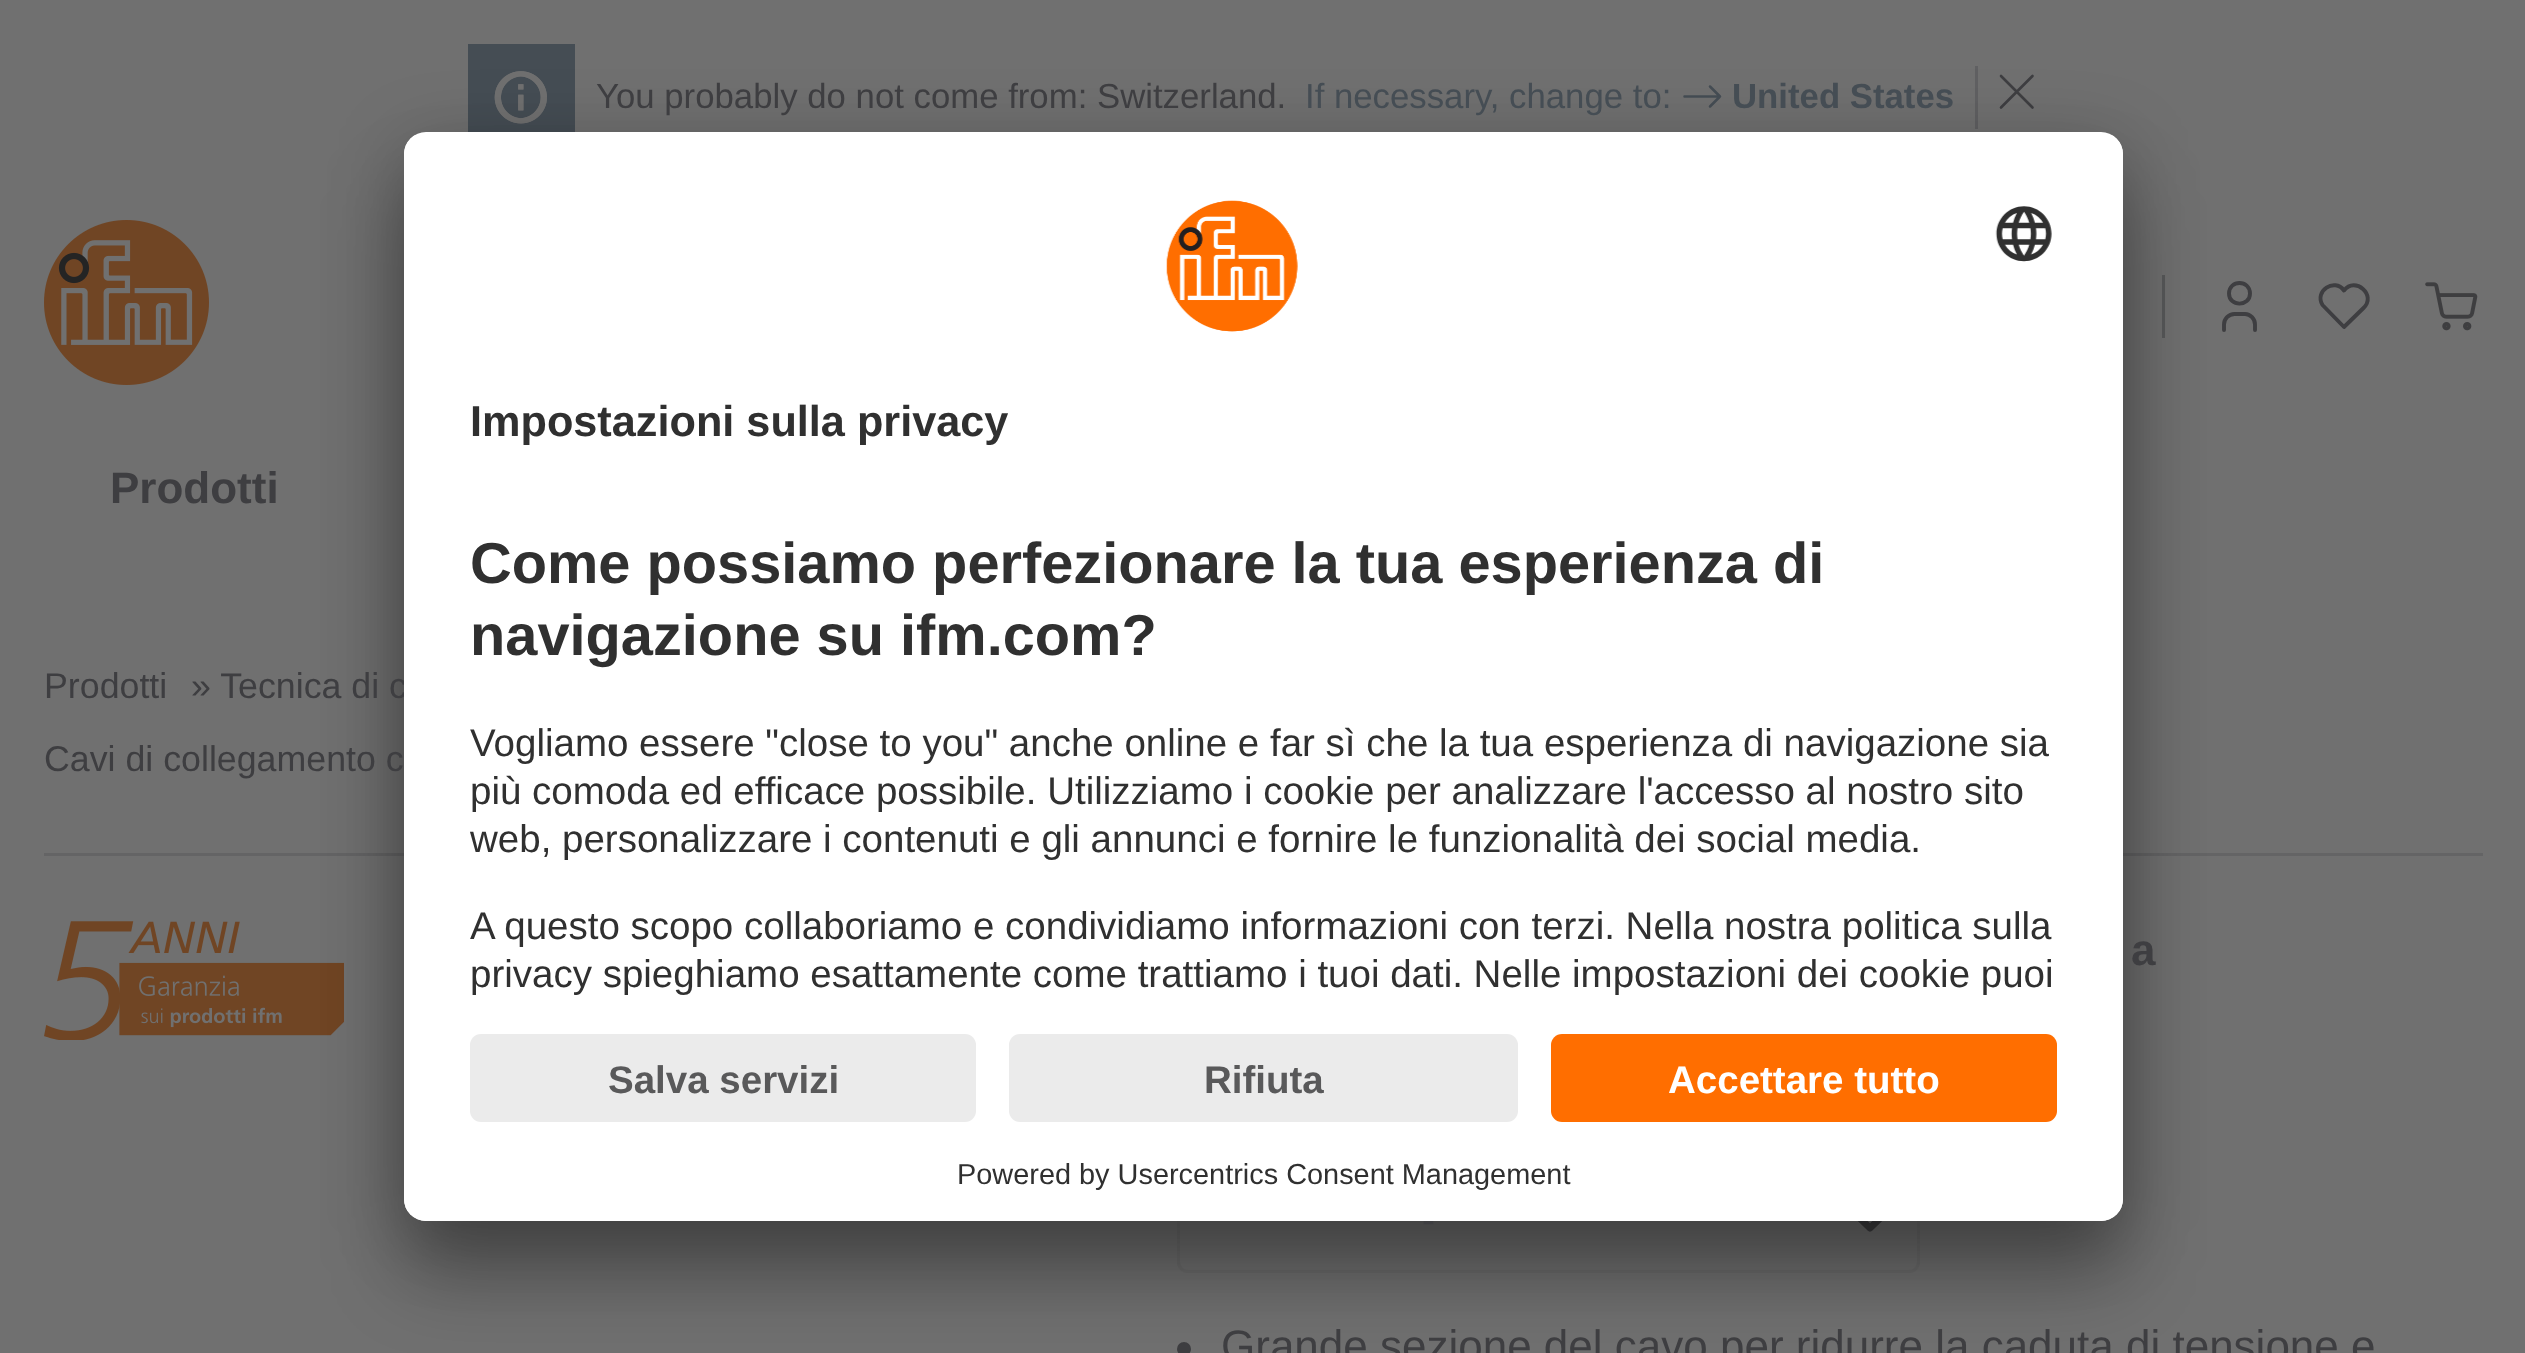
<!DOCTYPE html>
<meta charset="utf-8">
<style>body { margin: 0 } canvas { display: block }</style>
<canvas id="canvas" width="2525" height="1353"></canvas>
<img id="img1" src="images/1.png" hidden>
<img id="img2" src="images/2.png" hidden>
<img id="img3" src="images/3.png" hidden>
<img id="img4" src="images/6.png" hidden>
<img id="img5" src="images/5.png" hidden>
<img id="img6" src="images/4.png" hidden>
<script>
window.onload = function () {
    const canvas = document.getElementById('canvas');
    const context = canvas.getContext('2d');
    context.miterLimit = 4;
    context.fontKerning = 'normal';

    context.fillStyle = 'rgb(112, 112, 112)';
    context.fillRect(0, 0, 2525, 1353);
    context.fillStyle = 'rgb(69, 77, 84)';
    context.fillRect(468, 44, 107, 88);
    context.drawImage(document.getElementById('img1'), 494, 71, 53, 53);
    context.beginPath();
    context.moveTo(1684.5, 96.5);
    context.lineTo(1720, 96.5);
    context.moveTo(1710, 106.5);
    context.lineTo(1720, 96.5);
    context.moveTo(1710, 86.5);
    context.lineTo(1720, 96.5);
    context.strokeStyle = 'rgb(69, 77, 84)';
    context.lineWidth = 2.5;
    context.lineCap = 'round';
    context.lineJoin = 'round';
    context.stroke();
    context.fillStyle = 'rgb(96, 96, 98)';
    context.fillRect(1975, 66, 3, 63);
    context.beginPath();
    context.moveTo(2032.5, 76);
    context.lineTo(2001, 107.5);
    context.moveTo(2001, 76);
    context.lineTo(2032.5, 107.5);
    context.strokeStyle = 'rgb(62, 62, 65)';
    context.lineWidth = 2.6;
    context.stroke();
    context.drawImage(document.getElementById('img2'), 44, 220, 165, 165);
    context.fillStyle = 'rgb(88, 89, 90)';
    context.fillRect(2162, 275, 3, 63);
    context.beginPath();
    context.moveTo(2229, 293.5);
    context.bezierCurveTo(2229, 307, 2250, 307, 2250, 293.5);
    context.bezierCurveTo(2250, 279.5, 2229, 279.5, 2229, 293.5);
    context.moveTo(2224, 330);
    context.lineTo(2224, 324.5);
    context.bezierCurveTo(2224, 319, 2228.5, 314, 2234.5, 314);
    context.lineTo(2245, 314);
    context.bezierCurveTo(2250.5, 314, 2255, 319, 2255, 324.5);
    context.lineTo(2255, 330);
    context.lineWidth = 3.9;
    context.stroke();
    context.beginPath();
    context.moveTo(2363.5, 308);
    context.lineTo(2344, 327);
    context.lineTo(2322.5, 305);
    context.bezierCurveTo(2314, 291, 2334.5, 277.5, 2344, 290.5);
    context.bezierCurveTo(2355, 276, 2377, 295, 2363.5, 308);
    context.stroke();
    context.drawImage(document.getElementById('img3'), 2425, 282, 53, 49);
    context.fillStyle = 'rgb(100, 100, 101)';
    context.fillRect(44, 853, 2439, 3);
    context.drawImage(document.getElementById('img4'), 44, 921, 300, 119);
    context.beginPath();
    context.moveTo(1856, 1214.5);
    context.lineTo(1870, 1228);
    context.lineTo(1884, 1214.5);
    context.lineWidth = 6.9;
    context.stroke();
    context.beginPath();
    context.roundRect(1178.5, 1167.5, 740, 104, 9.5);
    context.strokeStyle = 'rgb(107, 107, 107)';
    context.lineWidth = 3;
    context.lineJoin = 'miter';
    context.stroke();
    context.fillStyle = 'rgb(62, 62, 65)';
    context.beginPath();
    context.arc(1184, 1349, 7, 0, 2 * Math.PI);
    context.fill();
    context.fillStyle = 'rgba(0, 0, 0, 0.3)';
    context.filter = 'blur(38.5px)';
    context.beginPath();
    context.roundRect(404, 187, 1719, 1089, 22);
    context.fill();
    context.filter = 'none';
    context.fillStyle = 'rgba(0, 0, 0, 0.22)';
    context.filter = 'blur(36px)';
    context.beginPath();
    context.roundRect(404, 146, 1719, 1089, 22);
    context.fill();
    context.filter = 'none';
    context.font = '34.75px Liberation Sans';
    context.fillStyle = 'rgb(62, 62, 65)';
    context.fillText('You probably do not come from: Switzerland.', 596, 108);
    context.fillStyle = 'rgb(69, 77, 84)';
    context.fillText('If necessary, change to:', 1305, 108);
    context.font = 'bold 34.75px Liberation Sans';
    context.fillText('United States', 1732, 108);
    context.font = 'bold 44px Liberation Sans';
    context.fillStyle = 'rgb(62, 62, 65)';
    context.fillText('Prodotti', 110, 503);
    context.font = '35.75px Liberation Sans';
    context.fillText('Prodotti', 44, 698);
    context.fillText('» Tecnica di c', 191, 698);
    context.fillStyle = 'rgb(255, 255, 255)';
    context.beginPath();
    context.roundRect(404, 132, 1719, 1089, 22);
    context.fill();
    context.save();
    context.beginPath();
    context.roundRect(404, 132, 1719, 1089, 22);
    context.clip();
    context.beginPath();
    context.roundRect(404, 132, 1719, 880, [22, 22, 0, 0]);
    context.clip();
    context.fillRect(404, 135, 1719, 877);
    context.restore();
    context.drawImage(document.getElementById('img5'), 1995, 206, 57, 56);
    context.drawImage(document.getElementById('img6'), 1166, 200, 132, 132);
    context.font = '38.5px Liberation Sans';
    context.fillStyle = 'rgb(48, 48, 48)';
    context.fillText('privacy spieghiamo esattamente come trattiamo i tuoi dati. Nelle impostazioni dei cookie puoi', 470, 987);
    context.fillText('A questo scopo collaboriamo e condividiamo informazioni con terzi. Nella nostra politica sulla', 470, 939);
    context.fillText('web, personalizzare i contenuti e gli annunci e fornire le funzionalità dei social media.', 470, 852);
    context.fillText('più comoda ed efficace possibile. Utilizziamo i cookie per analizzare l\'accesso al nostro sito', 470, 804);
    context.fillText('Vogliamo essere "close to you" anche online e far sì che la tua esperienza di navigazione sia', 470, 756);
    context.font = 'bold 57.75px Liberation Sans';
    context.fillText('navigazione su ifm.com?', 470, 655);
    context.fillText('Come possiamo perfezionare la tua esperienza di', 470, 583);
    context.font = 'bold 43.25px Liberation Sans';
    context.fillText('Impostazioni sulla privacy', 470, 436);
    context.fillStyle = 'rgb(255, 255, 255)';
    context.beginPath();
    context.roundRect(404, 1012, 1719, 209, [0, 0, 22, 22]);
    context.fill();
    context.font = '28.9px Liberation Sans';
    context.fillStyle = 'rgb(48, 48, 48)';
    context.fillText('Powered by Usercentrics Consent Management', 957, 1184);
    context.fillStyle = 'rgb(255, 110, 0)';
    context.beginPath();
    context.roundRect(1551, 1034, 506, 88, 11);
    context.fill();
    context.font = 'bold 38.5px Liberation Sans';
    context.fillStyle = 'rgb(255, 255, 255)';
    context.fillText('Accettare tutto', 1668, 1093);
    context.fillStyle = 'rgb(235, 235, 235)';
    context.beginPath();
    context.roundRect(1009, 1034, 509, 88, 11);
    context.fill();
    context.fillStyle = 'rgb(89, 89, 90)';
    context.fillText('Rifiuta', 1204, 1093);
    context.fillStyle = 'rgb(235, 235, 235)';
    context.beginPath();
    context.roundRect(470, 1034, 506, 88, 11);
    context.fill();
    context.fillStyle = 'rgb(89, 89, 90)';
    context.fillText('Salva servizi', 608, 1093);
    context.font = '35.75px Liberation Sans';
    context.fillStyle = 'rgb(62, 62, 65)';
    context.fillText('Cavi di collegamento c', 44, 771);
    context.font = 'bold 44px Liberation Sans';
    context.fillText('a', 2131, 965);
    context.font = '39px Liberation Sans';
    context.fillText('-', 1422, 1233);
    context.font = '44px Liberation Sans';
    context.fillText('Grande sezione del cavo per ridurre la caduta di tensione e', 1221, 1361);
};
</script>
